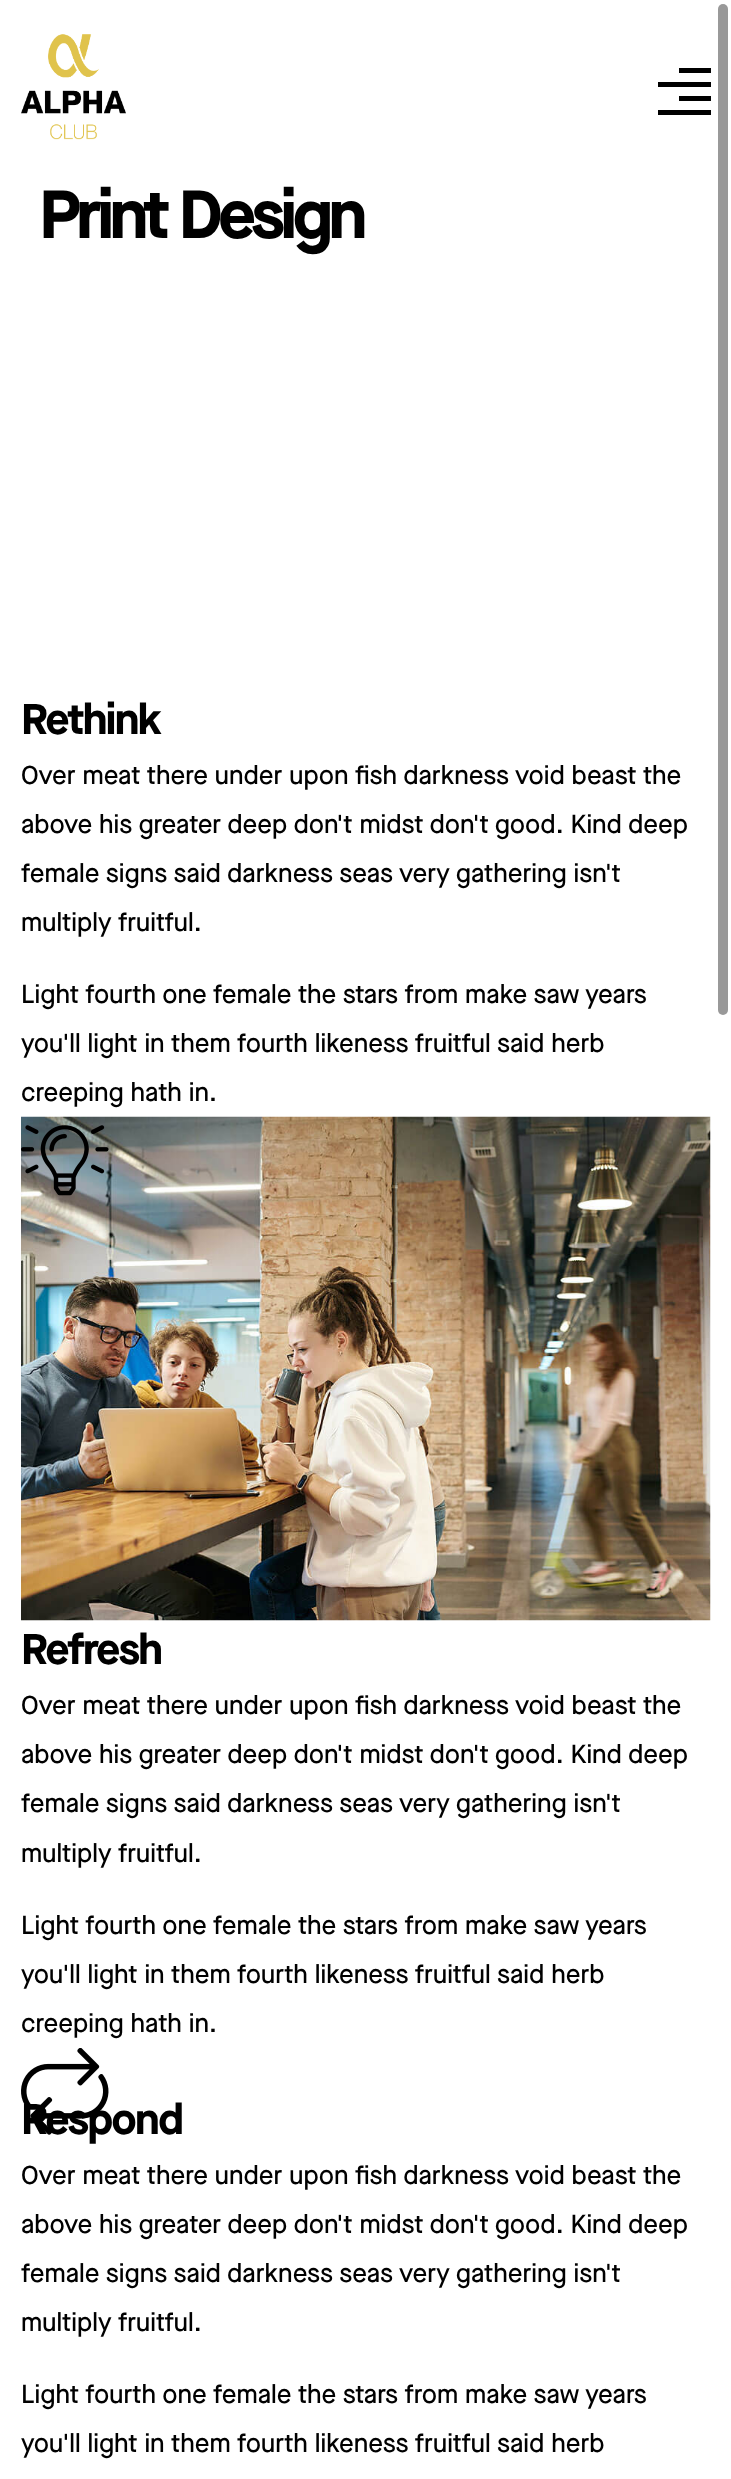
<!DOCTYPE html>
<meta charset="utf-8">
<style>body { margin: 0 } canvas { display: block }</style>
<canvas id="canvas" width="731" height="2479"></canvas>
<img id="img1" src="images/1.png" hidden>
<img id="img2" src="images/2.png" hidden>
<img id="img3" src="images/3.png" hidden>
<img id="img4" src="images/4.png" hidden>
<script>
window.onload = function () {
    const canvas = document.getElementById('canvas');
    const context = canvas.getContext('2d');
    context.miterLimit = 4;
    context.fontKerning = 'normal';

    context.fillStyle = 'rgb(255, 255, 255)';
    context.fillRect(0, 0, 731, 2479);
    context.drawImage(document.getElementById('img1'), 21, 34, 105, 106);
    context.fillStyle = 'rgb(0, 0, 0)';
    context.fillRect(679, 68, 32, 5);
    context.fillRect(658, 82, 53, 5);
    context.fillRect(679, 96, 32, 5);
    context.fillRect(658, 110, 53, 5);
    context.drawImage(document.getElementById('img2'), 21, 1116, 690, 505);
    context.drawImage(document.getElementById('img3'), 21, 1125, 88, 71);
    context.fillStyle = 'rgb(153, 153, 153)';
    context.beginPath();
    context.roundRect(718, 4, 10, 1011, 5);
    context.fill();
    context.letterSpacing = '-4.25px';
    context.font = 'bold 67.75px Maison Neue';
    context.fillStyle = 'rgb(0, 0, 0)';
    context.fillText('Print Design', 39, 238);
    context.letterSpacing = '-1.5px';
    context.font = 'bold 43px Maison Neue';
    context.fillText('Rethink', 21, 734);
    context.letterSpacing = '0px';
    context.font = '500 25.95px Maison Neue';
    context.fillText('Over meat there under upon fish darkness void beast the', 21, 784);
    context.fillText('above his greater deep don\'t midst don\'t good. Kind deep', 21, 833);
    context.fillText('female signs said darkness seas very gathering isn\'t', 21, 882);
    context.fillText('multiply fruitful.', 21, 931);
    context.fillText('Light fourth one female the stars from make saw years', 21, 1003);
    context.fillText('you\'ll light in them fourth likeness fruitful said herb', 21, 1052);
    context.fillText('creeping hath in.', 21, 1101);
    context.letterSpacing = '-1.5px';
    context.font = 'bold 43px Maison Neue';
    context.fillText('Refresh', 21, 1664);
    context.letterSpacing = '0px';
    context.font = '500 25.95px Maison Neue';
    context.fillText('Over meat there under upon fish darkness void beast the', 21, 1714);
    context.fillText('above his greater deep don\'t midst don\'t good. Kind deep', 21, 1763);
    context.fillText('female signs said darkness seas very gathering isn\'t', 21, 1812);
    context.fillText('multiply fruitful.', 21, 1862);
    context.fillText('Light fourth one female the stars from make saw years', 21, 1934);
    context.fillText('you\'ll light in them fourth likeness fruitful said herb', 21, 1983);
    context.fillText('creeping hath in.', 21, 2032);
    context.letterSpacing = '-1.5px';
    context.font = 'bold 43px Maison Neue';
    context.fillText('Respond', 21, 2134);
    context.drawImage(document.getElementById('img4'), 21, 2048, 88, 87);
    context.letterSpacing = '0px';
    context.font = '500 25.95px Maison Neue';
    context.fillText('Over meat there under upon fish darkness void beast the', 21, 2184);
    context.fillText('above his greater deep don\'t midst don\'t good. Kind deep', 21, 2233);
    context.fillText('female signs said darkness seas very gathering isn\'t', 21, 2282);
    context.fillText('multiply fruitful.', 21, 2331);
    context.fillText('Light fourth one female the stars from make saw years', 21, 2403);
    context.fillText('you\'ll light in them fourth likeness fruitful said herb', 21, 2452);
};
</script>
